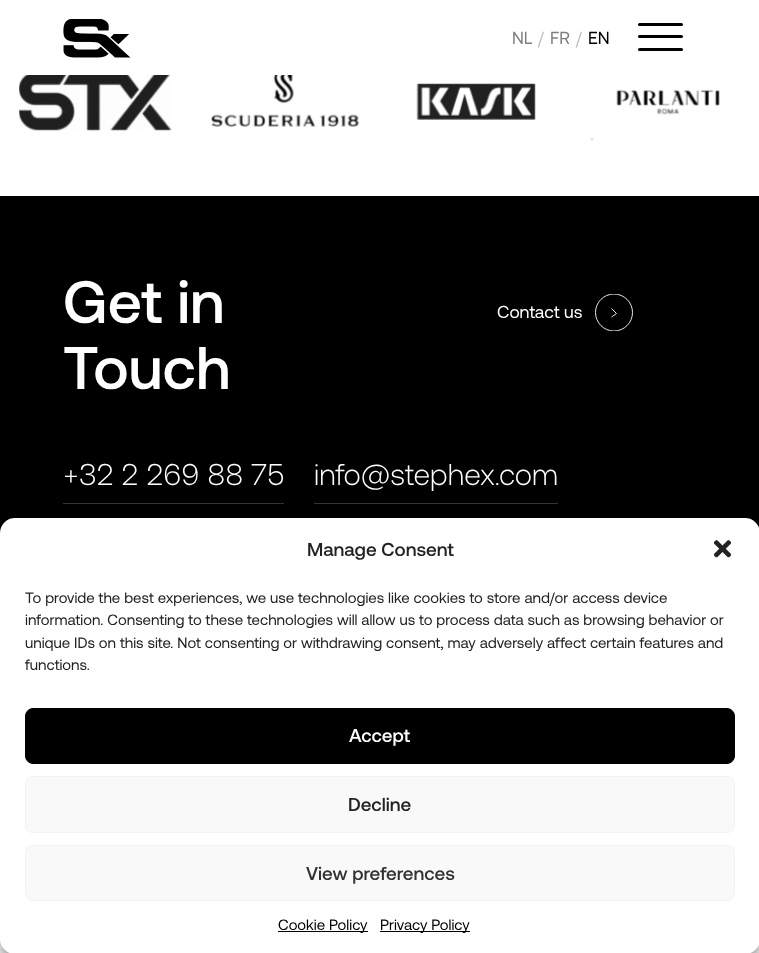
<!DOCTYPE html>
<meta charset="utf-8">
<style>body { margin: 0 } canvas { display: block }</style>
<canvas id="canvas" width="759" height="953"></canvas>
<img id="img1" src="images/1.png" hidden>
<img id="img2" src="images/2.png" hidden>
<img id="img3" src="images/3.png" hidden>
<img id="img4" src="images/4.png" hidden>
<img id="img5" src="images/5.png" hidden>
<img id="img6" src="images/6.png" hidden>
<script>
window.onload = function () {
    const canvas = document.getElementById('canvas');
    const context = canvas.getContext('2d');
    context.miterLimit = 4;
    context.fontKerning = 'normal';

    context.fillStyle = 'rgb(255, 255, 255)';
    context.fillRect(0, 0, 759, 953);
    context.drawImage(document.getElementById('img1'), 63, 19, 68, 39);
    context.fillStyle = 'rgb(0, 0, 0)';
    context.beginPath();
    context.roundRect(638, 23, 45, 3, 1.5);
    context.fill();
    context.beginPath();
    context.roundRect(638, 35, 45, 3, 1.5);
    context.fill();
    context.beginPath();
    context.roundRect(638, 48, 45, 3, 1.5);
    context.fill();
    context.drawImage(document.getElementById('img2'), 19, 75, 153, 56);
    context.drawImage(document.getElementById('img3'), 211, 75, 148, 52);
    context.drawImage(document.getElementById('img4'), 416, 83, 120, 37);
    context.drawImage(document.getElementById('img5'), 590, 89, 130, 52);
    context.fillRect(0, 196, 759, 337);
    context.beginPath();
    context.moveTo(611.5, 308.5);
    context.lineTo(616.5, 313.5);
    context.lineTo(611.5, 317);
    context.strokeStyle = 'rgb(255, 255, 255)';
    context.lineWidth = 0.9;
    context.stroke();
    context.save();
    context.beginPath();
    context.rect(595, 294, 38, 37);
    context.clip();
    context.beginPath();
    context.arc(614, 312.5, 18.5, 0, 2 * Math.PI);
    context.stroke();
    context.restore();
    context.fillStyle = 'rgb(51, 51, 51)';
    context.fillRect(63, 503, 221, 1);
    context.fillRect(314, 503, 244, 1);
    context.fillStyle = 'rgba(0, 0, 0, 0.23)';
    context.filter = 'blur(4px)';
    context.beginPath();
    context.roundRect(0, 525, 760, 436, 15);
    context.fill();
    context.filter = 'none';
    context.fillStyle = 'rgba(0, 0, 0, 0.19)';
    context.filter = 'blur(12.5px)';
    context.beginPath();
    context.roundRect(0, 530, 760, 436, 15);
    context.fill();
    context.filter = 'none';
    context.fillStyle = 'rgb(255, 255, 255)';
    context.beginPath();
    context.roundRect(0, 518, 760, 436, 15);
    context.fill();
    context.drawImage(document.getElementById('img6'), 713, 540, 19, 18);
    context.fillStyle = 'rgb(0, 0, 0)';
    context.beginPath();
    context.roundRect(25.5, 708.5, 709, 55, 7.5);
    context.fill();
    context.strokeStyle = 'rgb(0, 0, 0)';
    context.lineWidth = 1;
    context.stroke();
    context.fillStyle = 'rgb(249, 249, 249)';
    context.beginPath();
    context.roundRect(25.5, 776.5, 709, 56, 7.5);
    context.fill();
    context.strokeStyle = 'rgb(242, 242, 242)';
    context.stroke();
    context.beginPath();
    context.roundRect(25.5, 845.5, 709, 55, 7.5);
    context.fill();
    context.stroke();
    context.fillStyle = 'rgb(0, 0, 0)';
    context.fillRect(278, 931, 90, 1);
    context.fillRect(380, 931, 90, 1);
    context.font = '17.5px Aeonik';
    context.fillStyle = 'rgb(128, 128, 128)';
    context.fillText('NL', 512, 44);
    context.fillStyle = 'rgb(191, 191, 191)';
    context.fillText('/', 538, 44);
    context.fillStyle = 'rgb(128, 128, 128)';
    context.fillText('FR', 550, 44);
    context.fillStyle = 'rgb(191, 191, 191)';
    context.fillText('/', 576, 44);
    context.fillStyle = 'rgb(0, 0, 0)';
    context.fillText('EN', 588, 44);
    context.font = '500 60px Aeonik';
    context.fillStyle = 'rgb(255, 255, 255)';
    context.fillText('Get in', 63, 323);
    context.fillText('Touch', 63, 389);
    context.font = '17.5px Aeonik';
    context.fillText('Contact us', 497, 318);
    context.font = '300 30px Aeonik';
    context.fillText('+32 2 269 88 75', 63, 485);
    context.fillText('info@stephex.com', 314, 485);
    context.font = '500 18.75px Aeonik';
    context.fillStyle = 'rgb(34, 34, 34)';
    context.fillText('Manage Consent', 307, 556);
    context.font = '15px Aeonik';
    context.fillText('To provide the best experiences, we use technologies like cookies to store and/or access device', 25, 603);
    context.fillText('information. Consenting to these technologies will allow us to process data such as browsing behavior or', 25, 625);
    context.fillText('unique IDs on this site. Not consenting or withdrawing consent, may adversely affect certain features and', 25, 648);
    context.fillText('functions.', 25, 670);
    context.font = '500 18.75px Aeonik';
    context.fillStyle = 'rgb(255, 255, 255)';
    context.fillText('Accept', 349, 742);
    context.fillStyle = 'rgb(34, 34, 34)';
    context.fillText('Decline', 348, 811);
    context.fillStyle = 'rgb(51, 51, 51)';
    context.fillText('View preferences', 306, 880);
    context.font = '15px Aeonik';
    context.fillStyle = 'rgb(0, 0, 0)';
    context.fillText('Cookie Policy', 278, 930);
    context.fillText('Privacy Policy', 380, 930);
};
</script>
